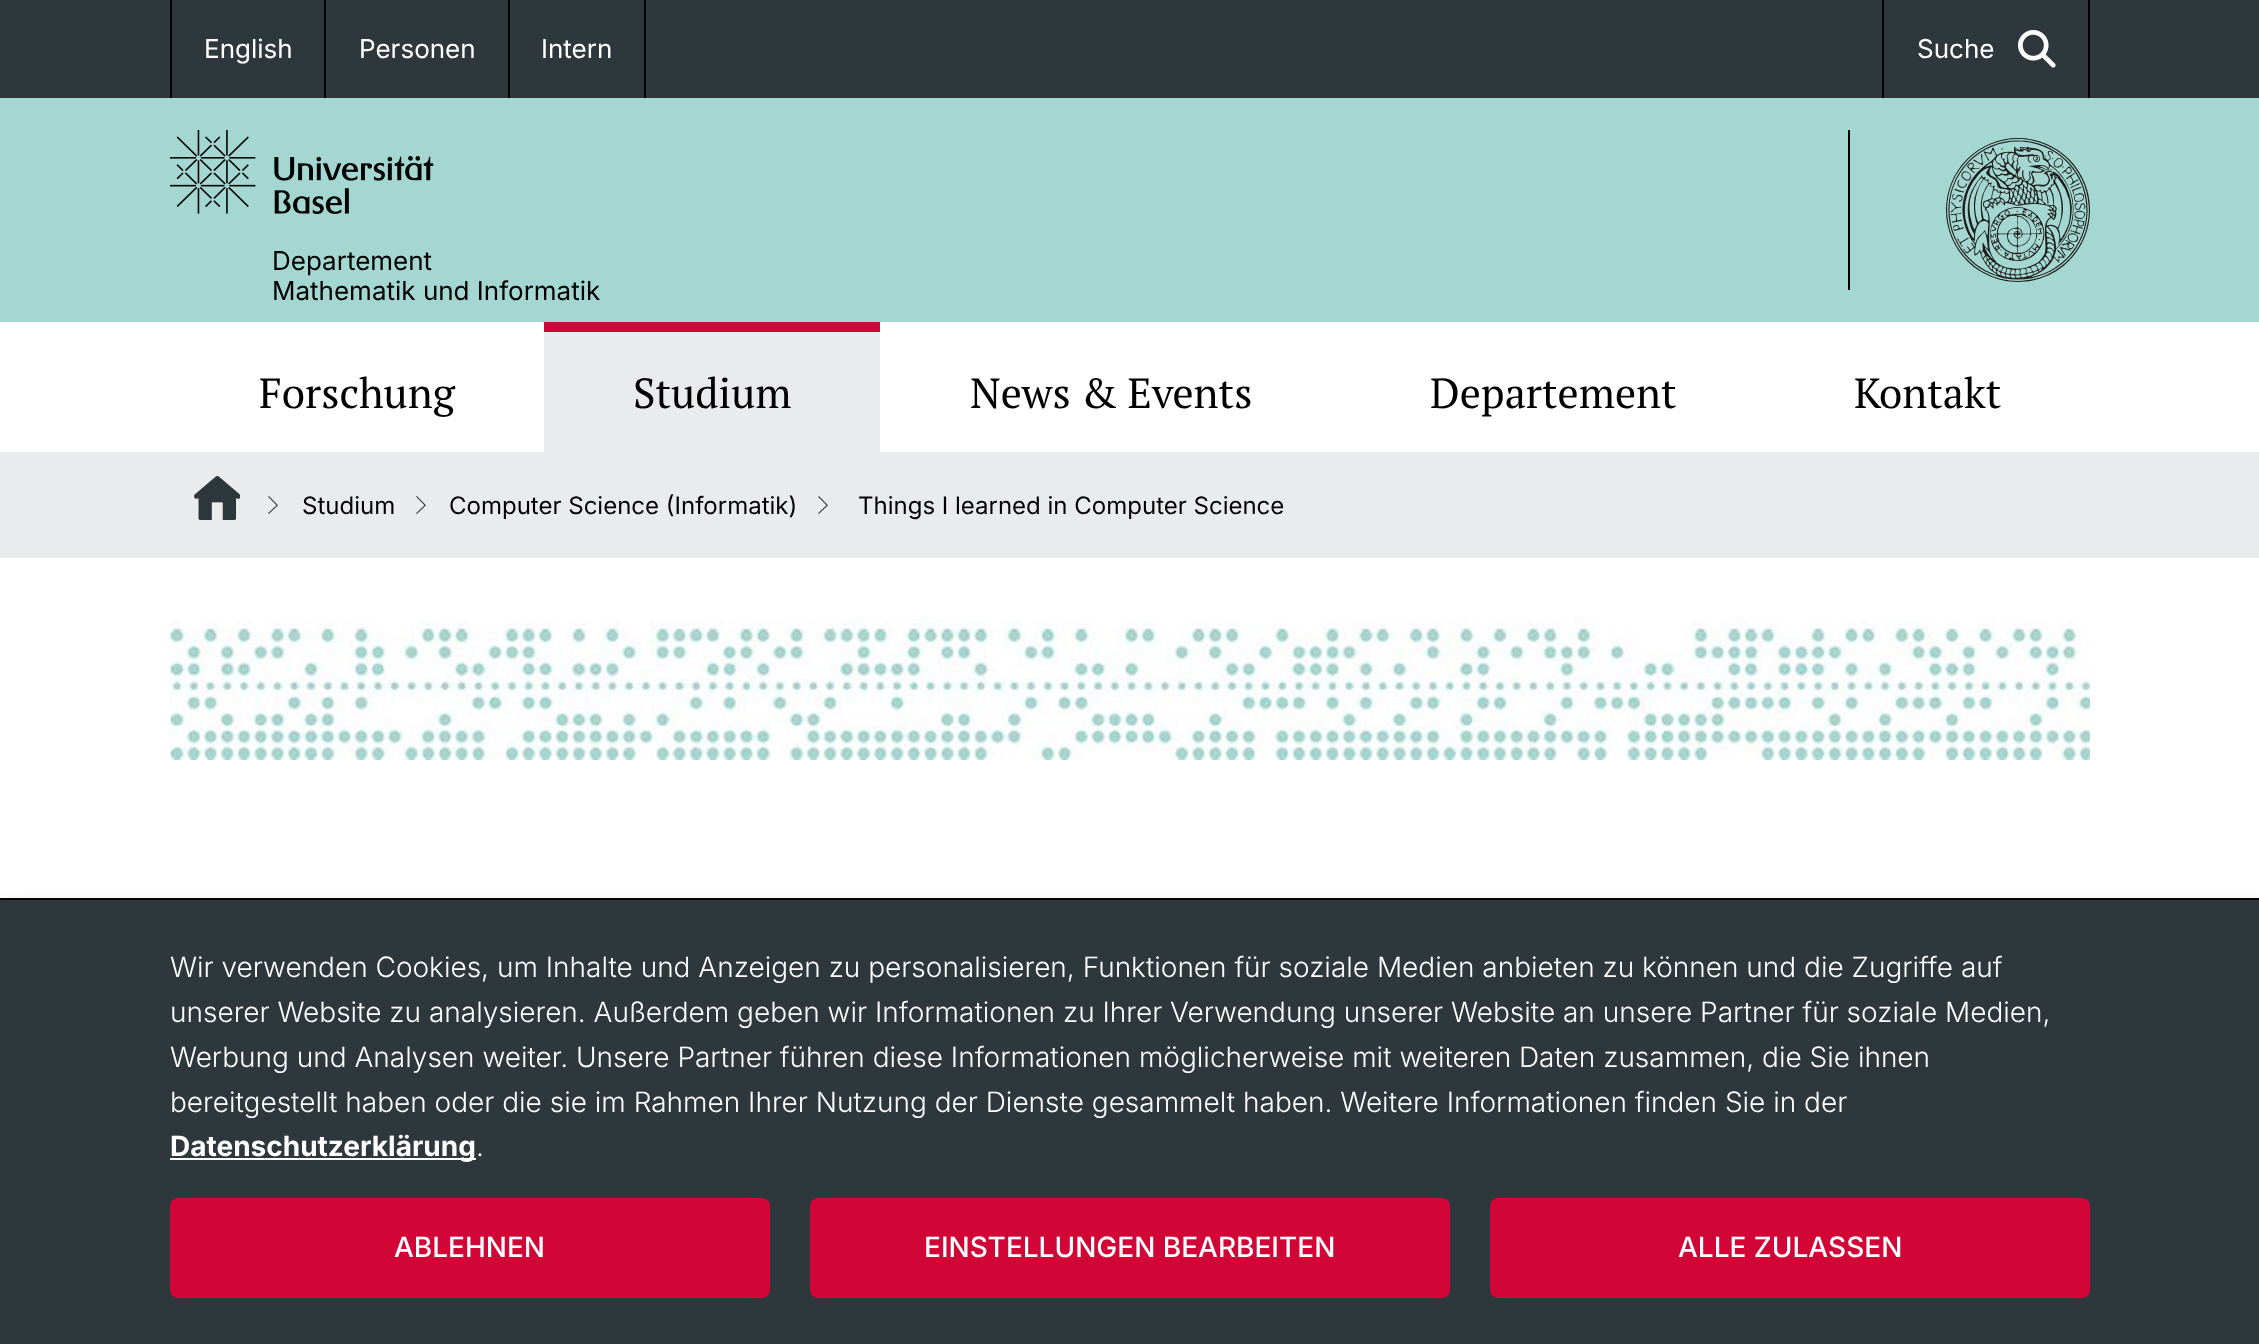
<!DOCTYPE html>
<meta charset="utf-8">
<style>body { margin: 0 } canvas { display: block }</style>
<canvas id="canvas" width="2259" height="1344"></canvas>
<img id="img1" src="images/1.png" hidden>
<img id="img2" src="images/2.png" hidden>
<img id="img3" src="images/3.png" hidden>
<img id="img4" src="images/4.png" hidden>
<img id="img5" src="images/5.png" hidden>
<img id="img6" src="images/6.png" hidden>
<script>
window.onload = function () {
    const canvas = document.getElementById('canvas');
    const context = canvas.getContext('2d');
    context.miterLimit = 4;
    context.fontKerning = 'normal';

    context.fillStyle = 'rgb(255, 255, 255)';
    context.fillRect(0, 0, 2259, 1344);
    context.fillStyle = 'rgb(45, 55, 60)';
    context.fillRect(0, 0, 2259, 98);
    context.fillStyle = 'rgb(0, 0, 0)';
    context.fillRect(324, 0, 2, 98);
    context.fillRect(170, 0, 2, 98);
    context.fillRect(508, 0, 2, 98);
    context.fillRect(644, 0, 2, 98);
    context.fillRect(2088, 0, 2, 98);
    context.fillRect(1882, 0, 2, 98);
    context.drawImage(document.getElementById('img1'), 2018, 30, 38, 38);
    context.fillStyle = 'rgb(165, 215, 210)';
    context.fillRect(0, 98, 2259, 224);
    context.drawImage(document.getElementById('img2'), 170, 130, 264, 84);
    context.fillStyle = 'rgb(0, 0, 0)';
    context.fillRect(1848, 130, 2, 160);
    context.drawImage(document.getElementById('img3'), 1946, 138, 144, 144);
    context.fillStyle = 'rgb(234, 235, 236)';
    context.fillRect(544, 332, 336, 120);
    context.fillStyle = 'rgb(210, 5, 55)';
    context.fillRect(544, 322, 336, 10);
    context.fillStyle = 'rgb(234, 235, 236)';
    context.fillRect(0, 452, 2259, 106);
    context.drawImage(document.getElementById('img4'), 194, 476, 46, 44);
    context.drawImage(document.getElementById('img5'), 268, 496, 10, 18);
    context.drawImage(document.getElementById('img5'), 416, 496, 10, 18);
    context.drawImage(document.getElementById('img5'), 818, 496, 10, 18);
    context.drawImage(document.getElementById('img6'), 170, 618, 1920, 142);
    context.fillStyle = 'rgba(0, 0, 0, 0.19)';
    context.filter = 'blur(10px)';
    context.beginPath();
    context.rect(10, 908, 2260, 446);
    context.fill();
    context.filter = 'none';
    context.fillStyle = 'rgb(45, 55, 60)';
    context.fillRect(0, 900, 2259, 444);
    context.fillStyle = 'rgb(0, 0, 0)';
    context.fillRect(0, 898, 2259, 2);
    context.fillStyle = 'rgb(255, 255, 255)';
    context.fillRect(170, 1158, 306, 2);
    context.fillStyle = 'rgb(210, 5, 55)';
    context.beginPath();
    context.roundRect(170, 1198, 600, 100, 8);
    context.fill();
    context.beginPath();
    context.roundRect(1490, 1198, 600, 100, 8);
    context.fill();
    context.beginPath();
    context.roundRect(810, 1198, 640, 100, 8);
    context.fill();
    context.font = '26px Inter';
    context.fillStyle = 'rgb(255, 255, 255)';
    context.fillText('English', 204, 58);
    context.fillText('Personen', 359, 58);
    context.fillText('Intern', 541, 58);
    context.fillText('Suche', 1917, 58);
    context.fillStyle = 'rgb(0, 0, 0)';
    context.fillText('Departement', 272, 270);
    context.fillText('Mathematik und Informatik', 272, 300);
    context.font = '42px PT Serif';
    context.fillText('Forschung', 259, 408);
    context.fillText('Studium', 633, 408);
    context.fillText('News & Events', 970, 408);
    context.fillText('Departement', 1430, 408);
    context.fillText('Kontakt', 1854, 408);
    context.font = '24px Inter';
    context.fillText('Studium', 302, 514);
    context.fillText('Computer Science (Informatik)', 449, 514);
    context.fillText('Things I learned in Computer Science', 858, 514);
    context.font = '300 28px Inter';
    context.fillStyle = 'rgb(255, 255, 255)';
    context.fillText('Wir verwenden Cookies, um Inhalte und Anzeigen zu personalisieren, Funktionen für soziale Medien anbieten zu können und die Zugriffe auf', 170, 977);
    context.fillText('unserer Website zu analysieren. Außerdem geben wir Informationen zu Ihrer Verwendung unserer Website an unsere Partner für soziale Medien,', 170, 1022);
    context.fillText('Werbung und Analysen weiter. Unsere Partner führen diese Informationen möglicherweise mit weiteren Daten zusammen, die Sie ihnen', 170, 1067);
    context.fillText('bereitgestellt haben oder die sie im Rahmen Ihrer Nutzung der Dienste gesammelt haben. Weitere Informationen finden Sie in der', 170, 1112);
    context.font = 'bold 28px Inter';
    context.fillText('Datenschutzerklärung', 170, 1156);
    context.font = '300 28px Inter';
    context.fillText('.', 476, 1156);
    context.font = '500 28px Inter';
    context.fillText('ABLEHNEN', 394, 1257);
    context.fillText('ALLE ZULASSEN', 1678, 1257);
    context.fillText('EINSTELLUNGEN BEARBEITEN', 924, 1257);
};
</script>
